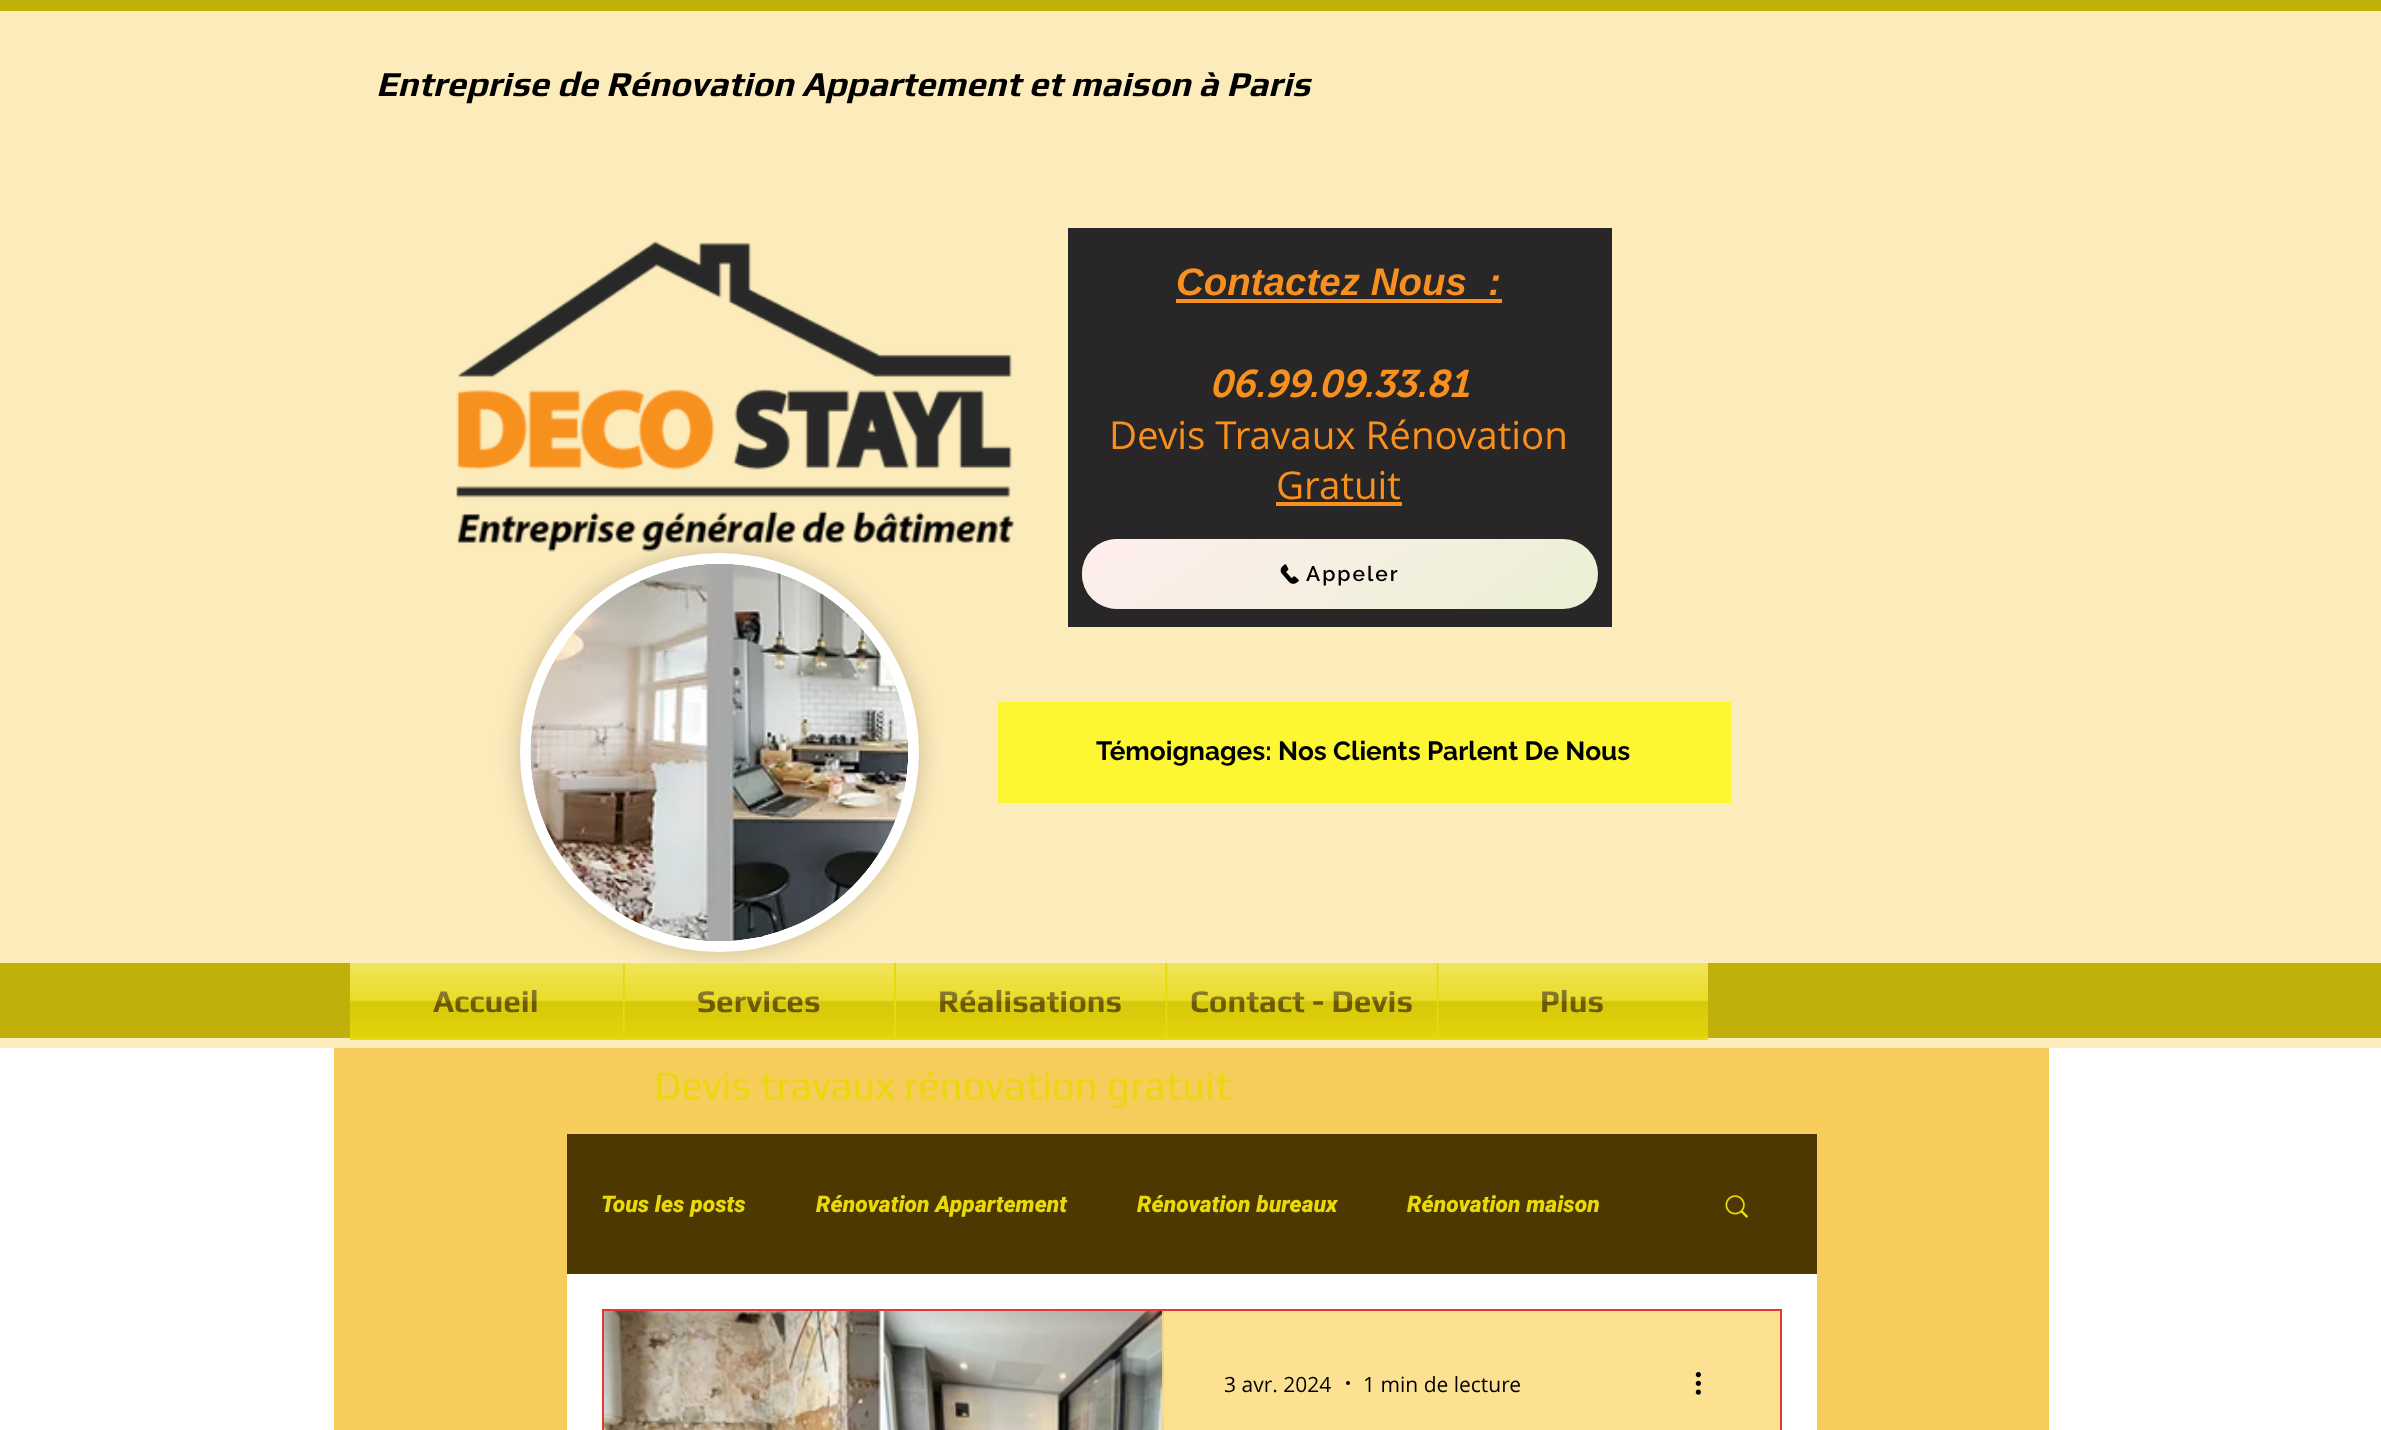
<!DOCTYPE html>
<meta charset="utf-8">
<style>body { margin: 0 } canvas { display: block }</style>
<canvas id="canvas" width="2381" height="1430"></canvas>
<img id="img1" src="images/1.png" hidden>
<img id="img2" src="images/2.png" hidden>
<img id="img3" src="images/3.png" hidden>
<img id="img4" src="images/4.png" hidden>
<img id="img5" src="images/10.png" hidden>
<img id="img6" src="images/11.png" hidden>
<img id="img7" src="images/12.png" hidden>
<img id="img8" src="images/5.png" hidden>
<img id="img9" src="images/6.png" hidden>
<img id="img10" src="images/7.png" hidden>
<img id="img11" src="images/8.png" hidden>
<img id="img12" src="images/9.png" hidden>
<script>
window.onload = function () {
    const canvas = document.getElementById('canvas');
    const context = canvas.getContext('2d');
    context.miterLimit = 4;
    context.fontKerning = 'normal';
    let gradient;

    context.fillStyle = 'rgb(255, 255, 255)';
    context.fillRect(0, 0, 2381, 1430);
    context.fillStyle = 'rgb(193, 176, 9)';
    context.fillRect(0, 0, 2381, 11);
    context.fillStyle = 'rgb(252, 235, 187)';
    context.fillRect(0, 11, 2381, 1037);
    context.drawImage(document.getElementById('img1'), 456, 241, 558, 311);
    context.fillStyle = 'rgb(40, 38, 38)';
    context.fillRect(1068, 228, 544, 399);
    context.fillStyle = 'rgb(247, 144, 30)';
    context.fillRect(1176, 299, 326, 4);
    context.fillRect(1276, 502, 126, 4);
    context.fillStyle = 'rgb(235, 240, 212)';
    context.beginPath();
    context.roundRect(1082, 539, 516, 70, 35);
    context.fill();
    gradient = context.createLinearGradient(1238, 429, 1441, 719);
    gradient.addColorStop(0, 'rgb(255, 238, 238)');
    gradient.addColorStop(1, 'rgba(255, 238, 238, 0)');
    context.fillStyle = gradient;
    context.beginPath();
    context.roundRect(1082, 539, 516, 70, 35);
    context.fill();
    context.drawImage(document.getElementById('img2'), 1280, 564, 19, 20);
    context.fillStyle = 'rgba(0, 0, 0, 0.2)';
    context.filter = 'blur(12px)';
    context.beginPath();
    context.roundRect(520, 553, 399, 399, 199.5);
    context.fill();
    context.filter = 'none';
    context.fillStyle = 'rgb(255, 255, 255)';
    context.beginPath();
    context.arc(719.5, 752.5, 194, 0, 2 * Math.PI);
    context.fill();
    context.strokeStyle = 'rgb(255, 255, 255)';
    context.lineWidth = 11;
    context.stroke();
    context.drawImage(document.getElementById('img3'), 530, 564, 378, 377);
    context.fillStyle = 'rgb(253, 247, 51)';
    context.fillRect(998, 702, 733, 101);
    context.fillStyle = 'rgb(193, 176, 9)';
    context.fillRect(0, 963, 2381, 75);
    context.drawImage(document.getElementById('img4'), 350, 962, 1358, 1);
    context.fillStyle = 'rgb(232, 216, 12)';
    context.fillRect(350, 963, 544, 77);
    context.fillStyle = 'rgb(246, 205, 90)';
    context.fillRect(334, 1048, 1715, 382);
    context.fillStyle = 'rgb(255, 255, 255)';
    context.fillRect(567, 1274, 1250, 156);
    context.fillStyle = 'rgb(76, 56, 0)';
    context.fillRect(567, 1134, 1250, 140);
    context.drawImage(document.getElementById('img5'), 1725, 1195, 24, 23);
    context.strokeStyle = 'rgb(228, 56, 56)';
    context.lineWidth = 2;
    context.strokeRect(603, 1310, 1178, 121);
    context.drawImage(document.getElementById('img6'), 604, 1311, 560, 119);
    context.fillStyle = 'rgba(251, 220, 128, 0.85)';
    context.fillRect(1162, 1311, 618, 119);
    context.fillStyle = 'rgb(0, 0, 0)';
    context.beginPath();
    context.arc(1348, 1383, 2, 0, 2 * Math.PI);
    context.fill();
    context.drawImage(document.getElementById('img7'), 1695, 1372, 6, 23);
    context.font = 'italic bold 35px Play';
    context.fillText('Entreprise de Rénovation Appartement et maison à Paris', 376, 96);
    context.font = 'italic bold 38.5px Liberation Sans';
    context.fillStyle = 'rgb(247, 144, 30)';
    context.fillText('Contactez Nous  :', 1176, 295);
    context.font = 'italic 600 38.5px "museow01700"';
    context.fillText('06.99.09.33.81', 1209, 397);
    context.font = '38.5px Open Sans';
    context.fillText('Devis Travaux Rénovation', 1109, 449);
    context.fillText('Gratuit', 1276, 499);
    context.letterSpacing = '2px';
    context.font = '600 21px Raleway';
    context.fillStyle = 'rgb(0, 0, 0)';
    context.fillText('Appeler', 1306, 581);
    context.letterSpacing = '0px';
    context.font = 'bold 26.25px Raleway';
    context.fillText('Témoignages: Nos Clients Parlent De Nous', 1096, 760);
    context.font = 'bold 31.5px Play';
    context.fillStyle = 'rgb(115, 96, 3)';
    context.fillText('Accueil', 433, 1012);
    context.drawImage(document.getElementById('img8'), 350, 962, 273, 75);
    context.fillText('Services', 697, 1012);
    context.drawImage(document.getElementById('img9'), 624, 962, 271, 75);
    context.fillStyle = 'rgb(232, 216, 12)';
    context.fillRect(894, 963, 814, 77);
    context.fillStyle = 'rgb(115, 96, 3)';
    context.fillText('Réalisations', 938, 1012);
    context.drawImage(document.getElementById('img10'), 896, 962, 270, 75);
    context.fillText('Contact - Devis', 1190, 1012);
    context.drawImage(document.getElementById('img11'), 1167, 962, 270, 75);
    context.fillText('Plus', 1540, 1012);
    context.drawImage(document.getElementById('img12'), 1438, 962, 270, 75);
    context.font = '40.25px Play';
    context.fillStyle = 'rgb(232, 216, 12)';
    context.fillText('Devis travaux rénovation gratuit', 654, 1099);
    context.font = 'italic 900 22.75px Roboto';
    context.fillText('Tous les posts', 601, 1212);
    context.fillText('Rénovation Appartement', 816, 1212);
    context.fillText('Rénovation bureaux', 1137, 1212);
    context.fillText('Rénovation maison', 1407, 1212);
    context.font = '21px Open Sans';
    context.fillStyle = 'rgb(0, 0, 0)';
    context.fillText('3 avr. 2024', 1224, 1392);
    context.fillText('1 min de lecture', 1363, 1392);
};
</script>
